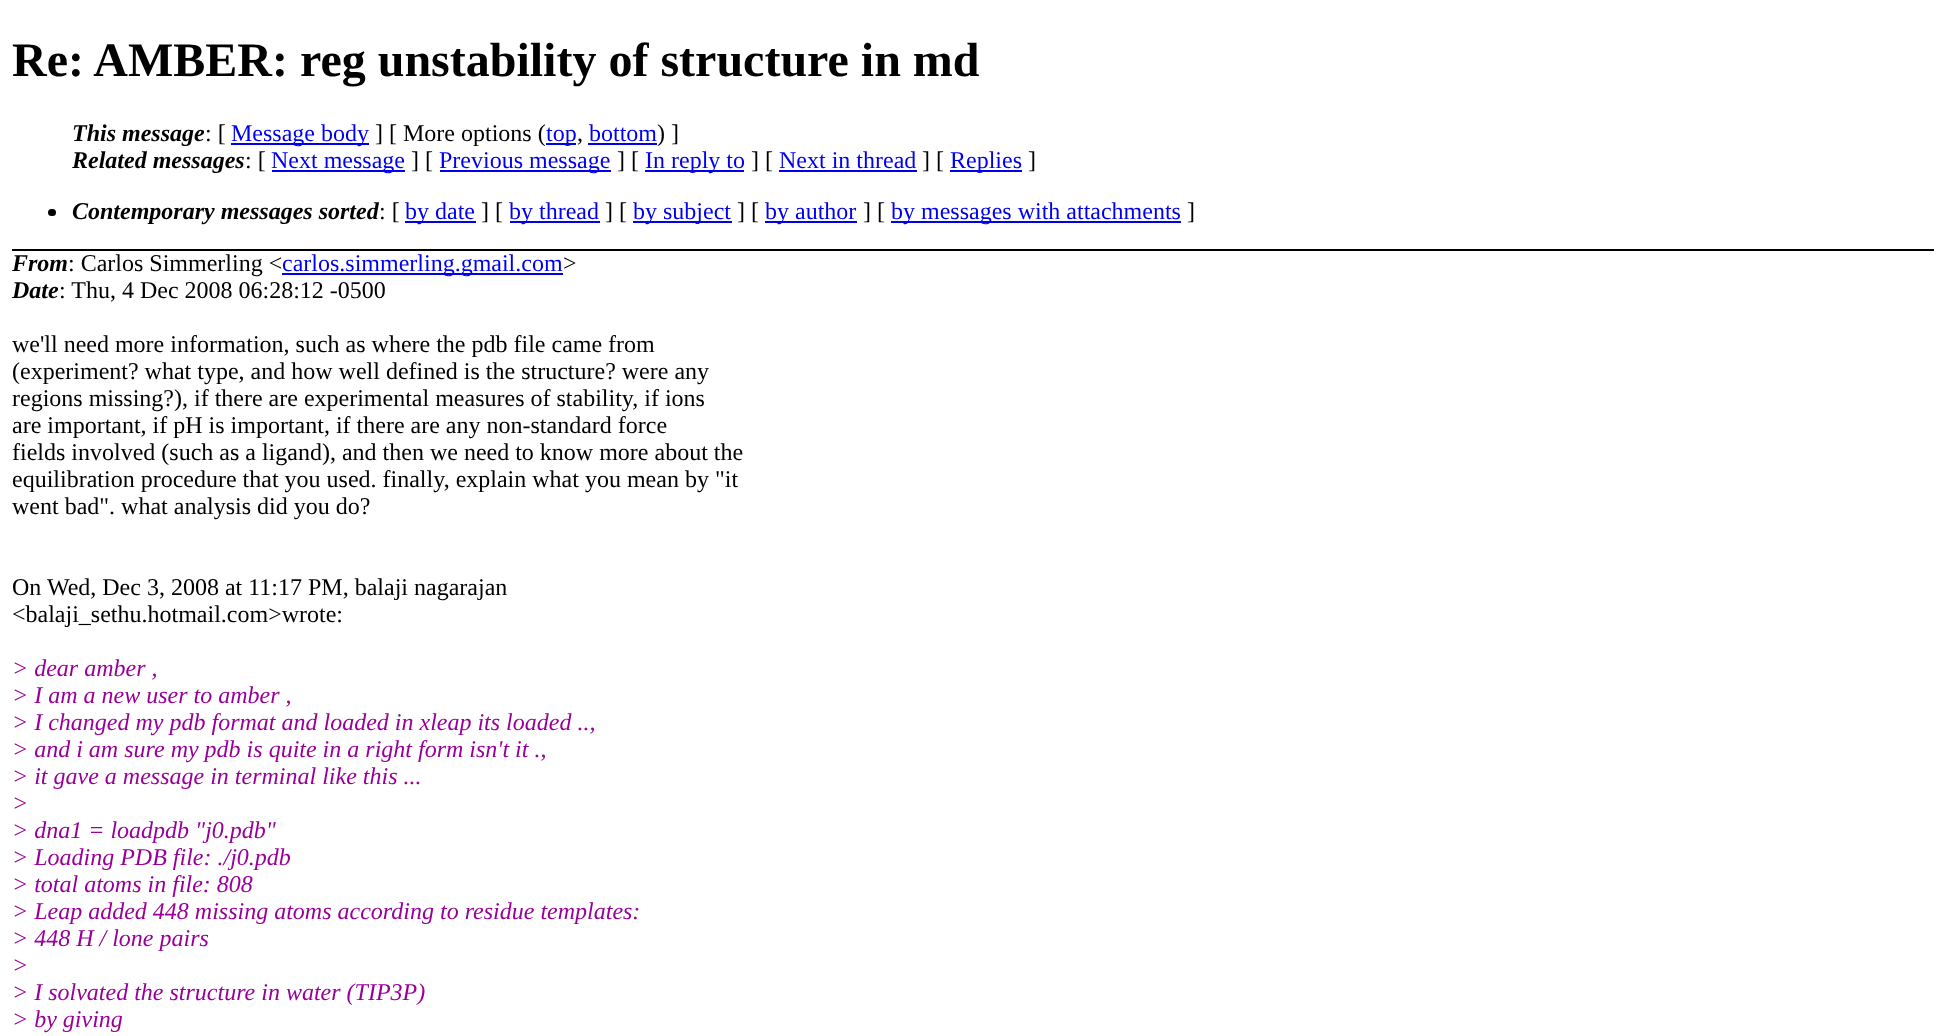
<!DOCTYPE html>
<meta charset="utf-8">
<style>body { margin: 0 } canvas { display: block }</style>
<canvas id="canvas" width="1945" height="1036"></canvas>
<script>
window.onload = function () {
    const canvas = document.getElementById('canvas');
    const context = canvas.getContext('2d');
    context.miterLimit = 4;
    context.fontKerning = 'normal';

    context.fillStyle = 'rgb(255, 255, 255)';
    context.fillRect(0, 0, 1945, 1036);
    context.fillStyle = 'rgb(0, 0, 0)';
    context.fillRect(12, 249, 1922, 2);
    context.fillStyle = 'rgb(0, 0, 238)';
    context.fillRect(231, 143, 138, 2);
    context.fillRect(546, 143, 30, 2);
    context.fillRect(588, 143, 69, 2);
    context.fillRect(272, 170, 133, 2);
    context.fillRect(440, 170, 171, 2);
    context.fillRect(645, 170, 99, 2);
    context.fillRect(779, 170, 138, 2);
    context.fillRect(950, 170, 72, 2);
    context.fillStyle = 'rgb(0, 0, 0)';
    context.beginPath();
    context.roundRect(48, 209, 8, 7, 3.5);
    context.fill();
    context.fillStyle = 'rgb(0, 0, 238)';
    context.fillRect(405, 221, 71, 2);
    context.fillRect(510, 221, 90, 2);
    context.fillRect(633, 221, 99, 2);
    context.fillRect(765, 221, 92, 2);
    context.fillRect(891, 221, 290, 2);
    context.fillRect(282, 273, 281, 2);
    context.font = 'bold 48px Liberation Serif';
    context.fillStyle = 'rgb(0, 0, 0)';
    context.fillText('Re: AMBER: reg unstability of structure in md', 12, 76);
    context.font = 'italic bold 24px Liberation Serif';
    context.fillText('This message', 72, 141);
    context.font = '24px Liberation Serif';
    context.fillText(': [', 205, 141);
    context.fillStyle = 'rgb(0, 0, 238)';
    context.fillText('Message body', 231, 141);
    context.fillStyle = 'rgb(0, 0, 0)';
    context.fillText('] [ More options (', 375, 141);
    context.fillStyle = 'rgb(0, 0, 238)';
    context.fillText('top', 546, 141);
    context.fillStyle = 'rgb(0, 0, 0)';
    context.fillText(',', 577, 141);
    context.fillStyle = 'rgb(0, 0, 238)';
    context.fillText('bottom', 589, 141);
    context.fillStyle = 'rgb(0, 0, 0)';
    context.fillText(') ]', 657, 141);
    context.font = 'italic bold 24px Liberation Serif';
    context.fillText('Related messages', 72, 168);
    context.font = '24px Liberation Serif';
    context.fillText(': [', 245, 168);
    context.fillStyle = 'rgb(0, 0, 238)';
    context.fillText('Next message', 271, 168);
    context.fillStyle = 'rgb(0, 0, 0)';
    context.fillText('] [', 411, 168);
    context.fillStyle = 'rgb(0, 0, 238)';
    context.fillText('Previous message', 439, 168);
    context.fillStyle = 'rgb(0, 0, 0)';
    context.fillText('] [', 617, 168);
    context.fillStyle = 'rgb(0, 0, 238)';
    context.fillText('In reply to', 645, 168);
    context.fillStyle = 'rgb(0, 0, 0)';
    context.fillText('] [', 751, 168);
    context.fillStyle = 'rgb(0, 0, 238)';
    context.fillText('Next in thread', 779, 168);
    context.fillStyle = 'rgb(0, 0, 0)';
    context.fillText('] [', 922, 168);
    context.fillStyle = 'rgb(0, 0, 238)';
    context.fillText('Replies', 950, 168);
    context.fillStyle = 'rgb(0, 0, 0)';
    context.fillText(']', 1028, 168);
    context.font = 'italic bold 24px Liberation Serif';
    context.fillText('Contemporary messages sorted', 72, 219);
    context.font = '24px Liberation Serif';
    context.fillText(': [', 379, 219);
    context.fillStyle = 'rgb(0, 0, 238)';
    context.fillText('by date', 405, 219);
    context.fillStyle = 'rgb(0, 0, 0)';
    context.fillText('] [', 481, 219);
    context.fillStyle = 'rgb(0, 0, 238)';
    context.fillText('by thread', 509, 219);
    context.fillStyle = 'rgb(0, 0, 0)';
    context.fillText('] [', 605, 219);
    context.fillStyle = 'rgb(0, 0, 238)';
    context.fillText('by subject', 633, 219);
    context.fillStyle = 'rgb(0, 0, 0)';
    context.fillText('] [', 737, 219);
    context.fillStyle = 'rgb(0, 0, 238)';
    context.fillText('by author', 765, 219);
    context.fillStyle = 'rgb(0, 0, 0)';
    context.fillText('] [', 863, 219);
    context.fillStyle = 'rgb(0, 0, 238)';
    context.fillText('by messages with attachments', 891, 219);
    context.fillStyle = 'rgb(0, 0, 0)';
    context.fillText(']', 1187, 219);
    context.font = 'italic bold 24px Liberation Serif';
    context.fillText('From', 12, 271);
    context.font = '24px Liberation Serif';
    context.fillText(': Carlos Simmerling <', 68, 271);
    context.fillStyle = 'rgb(0, 0, 238)';
    context.fillText('carlos.simmerling.gmail.com', 282, 271);
    context.fillStyle = 'rgb(0, 0, 0)';
    context.fillText('>', 563, 271);
    context.font = 'italic bold 24px Liberation Serif';
    context.fillText('Date', 12, 298);
    context.font = '24px Liberation Serif';
    context.fillText(': Thu, 4 Dec 2008 06:28:12 -0500', 59, 298);
    context.fillText('we\'ll need more information, such as where the pdb file came from', 12, 352);
    context.fillText('(experiment? what type, and how well defined is the structure? were any', 12, 379);
    context.fillText('regions missing?), if there are experimental measures of stability, if ions', 12, 406);
    context.fillText('are important, if pH is important, if there are any non-standard force', 12, 433);
    context.fillText('fields involved (such as a ligand), and then we need to know more about the', 12, 460);
    context.fillText('equilibration procedure that you used. finally, explain what you mean by "it', 12, 487);
    context.fillText('went bad". what analysis did you do?', 12, 514);
    context.fillText('On Wed, Dec 3, 2008 at 11:17 PM, balaji nagarajan', 12, 595);
    context.fillText('<balaji_sethu.hotmail.com>wrote:', 12, 622);
    context.font = 'italic 24px Liberation Serif';
    context.fillStyle = 'rgb(153, 0, 153)';
    context.fillText('> dear amber ,', 12, 676);
    context.fillText('> I am a new user to amber ,', 12, 703);
    context.fillText('> I changed my pdb format and loaded in xleap its loaded ..,', 12, 730);
    context.fillText('> and i am sure my pdb is quite in a right form isn\'t it .,', 12, 757);
    context.fillText('> it gave a message in terminal like this ...', 12, 784);
    context.fillText('>', 12, 811);
    context.fillText('> dna1 = loadpdb "j0.pdb"', 12, 838);
    context.fillText('> Loading PDB file: ./j0.pdb', 12, 865);
    context.fillText('> total atoms in file: 808', 12, 892);
    context.fillText('> Leap added 448 missing atoms according to residue templates:', 12, 919);
    context.fillText('> 448 H / lone pairs', 12, 946);
    context.fillText('>', 12, 973);
    context.fillText('> I solvated the structure in water (TIP3P)', 12, 1000);
    context.fillText('> by giving', 12, 1027);
};
</script>
